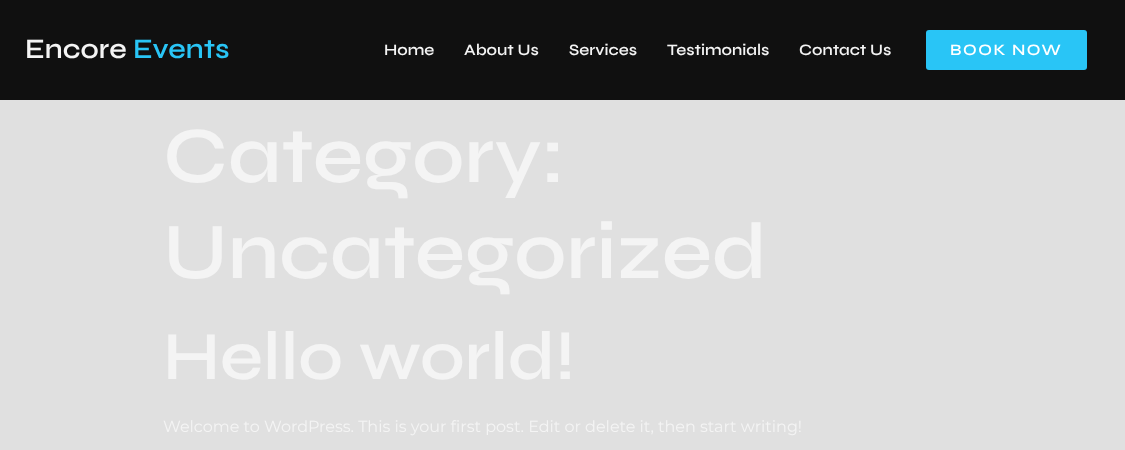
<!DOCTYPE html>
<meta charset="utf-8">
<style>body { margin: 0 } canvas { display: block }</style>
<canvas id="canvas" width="1125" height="450"></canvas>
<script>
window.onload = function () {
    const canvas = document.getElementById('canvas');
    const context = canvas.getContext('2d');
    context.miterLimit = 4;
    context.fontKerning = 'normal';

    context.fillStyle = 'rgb(224, 224, 224)';
    context.fillRect(0, 0, 1125, 450);
    context.fillStyle = 'rgb(16, 16, 16)';
    context.fillRect(0, 0, 1125, 100);
    context.fillStyle = 'rgb(41, 197, 246)';
    context.beginPath();
    context.roundRect(926, 30, 161, 40, 3);
    context.fill();
    context.font = '600 28px Syne';
    context.fillStyle = 'rgb(244, 244, 244)';
    context.fillText('Encore', 25, 58);
    context.fillStyle = 'rgb(41, 197, 246)';
    context.fillText('Events', 133, 58);
    context.font = '600 16px Syne';
    context.fillStyle = 'rgb(244, 244, 244)';
    context.fillText('Home', 384, 55);
    context.fillText('About Us', 464, 55);
    context.fillText('Services', 569, 55);
    context.fillText('Testimonials', 667, 55);
    context.fillText('Contact Us', 799, 55);
    context.letterSpacing = '1.5px';
    context.fillStyle = 'rgb(255, 255, 255)';
    context.fillText('BOOK NOW', 950, 55);
    context.letterSpacing = '0px';
    context.font = '600 80px Syne';
    context.fillStyle = 'rgb(244, 244, 244)';
    context.fillText('Category:', 163, 182);
    context.fillText('Uncategorized', 163, 278);
    context.font = '600 68.75px Syne';
    context.fillText('Hello world!', 163, 379);
    context.font = '16px Montserrat';
    context.fillText('Welcome to WordPress. This is your first post. Edit or delete it, then start writing!', 163, 432);
};
</script>
